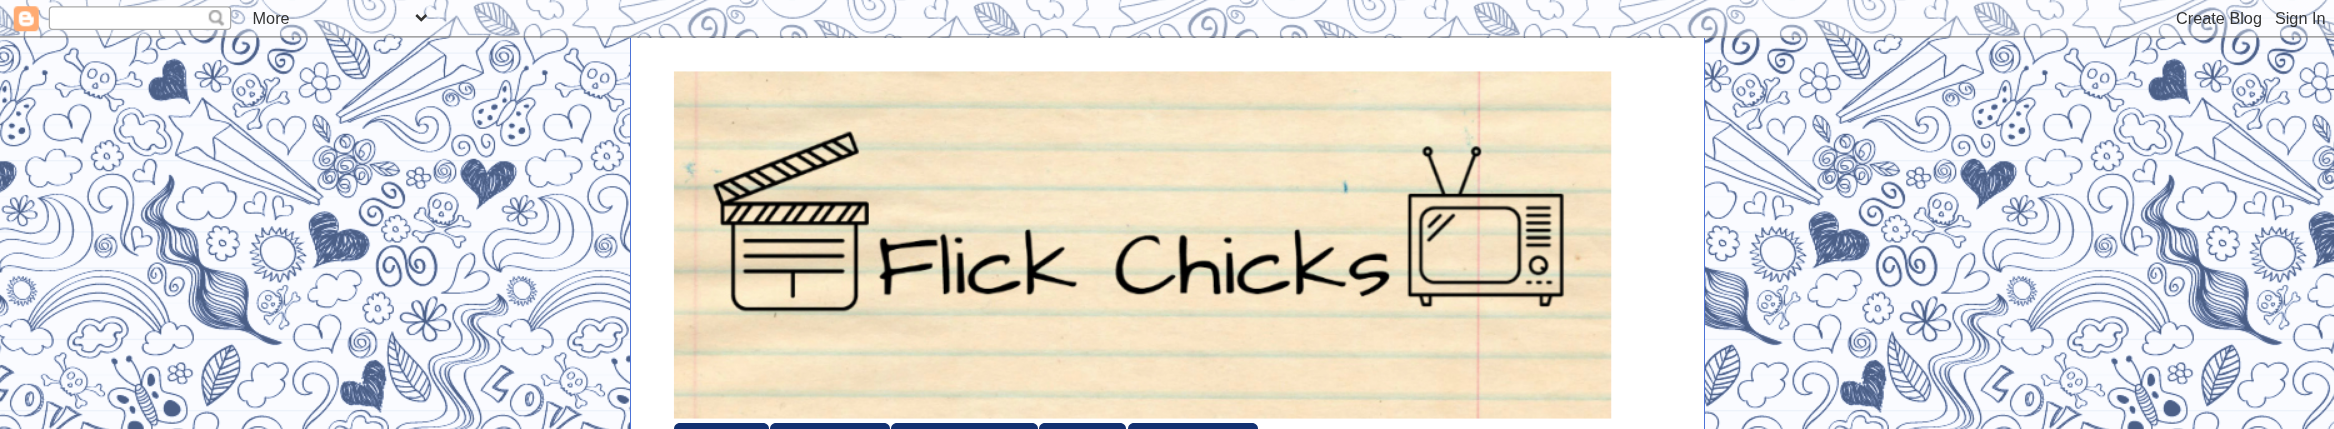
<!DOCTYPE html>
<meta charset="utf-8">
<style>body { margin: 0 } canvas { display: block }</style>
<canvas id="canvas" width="2334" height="429"></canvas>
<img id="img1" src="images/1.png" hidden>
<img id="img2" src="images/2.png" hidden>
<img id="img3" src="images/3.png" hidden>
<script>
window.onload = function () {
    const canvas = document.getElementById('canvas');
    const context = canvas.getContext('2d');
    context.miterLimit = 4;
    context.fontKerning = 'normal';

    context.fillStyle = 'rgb(39, 100, 227)';
    context.fillRect(0, 0, 2334, 429);
    context.drawImage(document.getElementById('img1'), 0, 0, 2334, 429);
    context.drawImage(document.getElementById('img2'), 0, 0, 2334, 38);
    context.fillStyle = 'rgb(255, 255, 255)';
    context.fillRect(631, 38, 1073, 391);
    context.fillStyle = 'rgb(76, 115, 216)';
    context.fillRect(1704, 38, 1, 391);
    context.fillRect(630, 38, 1, 391);
    context.drawImage(document.getElementById('img3'), 673, 71, 939, 348);
    context.fillStyle = 'rgb(19, 49, 113)';
    context.beginPath();
    context.moveTo(680, 423);
    context.lineTo(763, 423);
    context.bezierCurveTo(766.5, 423, 769, 425.5, 769, 429);
    context.lineTo(769, 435);
    context.lineTo(674, 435);
    context.lineTo(674, 429);
    context.bezierCurveTo(674, 425.5, 676.5, 423, 680, 423);
    context.closePath();
    context.fill();
    context.beginPath();
    context.moveTo(776, 423);
    context.lineTo(884, 423);
    context.bezierCurveTo(887.5, 423, 890, 425.5, 890, 429);
    context.lineTo(890, 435);
    context.lineTo(770, 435);
    context.lineTo(770, 429);
    context.bezierCurveTo(770, 425.5, 772.5, 423, 776, 423);
    context.closePath();
    context.fill();
    context.beginPath();
    context.moveTo(897, 423);
    context.lineTo(1032, 423);
    context.bezierCurveTo(1035.5, 423, 1038, 425.5, 1038, 429);
    context.lineTo(1038, 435);
    context.lineTo(891, 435);
    context.lineTo(891, 429);
    context.bezierCurveTo(891, 425.5, 893.5, 423, 897, 423);
    context.closePath();
    context.fill();
    context.beginPath();
    context.moveTo(1045, 423);
    context.lineTo(1120, 423);
    context.bezierCurveTo(1123.5, 423, 1126, 425.5, 1126, 429);
    context.lineTo(1126, 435);
    context.lineTo(1039, 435);
    context.lineTo(1039, 429);
    context.bezierCurveTo(1039, 425.5, 1041.5, 423, 1045, 423);
    context.closePath();
    context.fill();
    context.beginPath();
    context.moveTo(1134, 423);
    context.lineTo(1252, 423);
    context.bezierCurveTo(1255.5, 423, 1258, 425.5, 1258, 429);
    context.lineTo(1258, 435);
    context.lineTo(1128, 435);
    context.lineTo(1128, 429);
    context.bezierCurveTo(1128, 425.5, 1130.5, 423, 1134, 423);
    context.closePath();
    context.fill();
};
</script>
